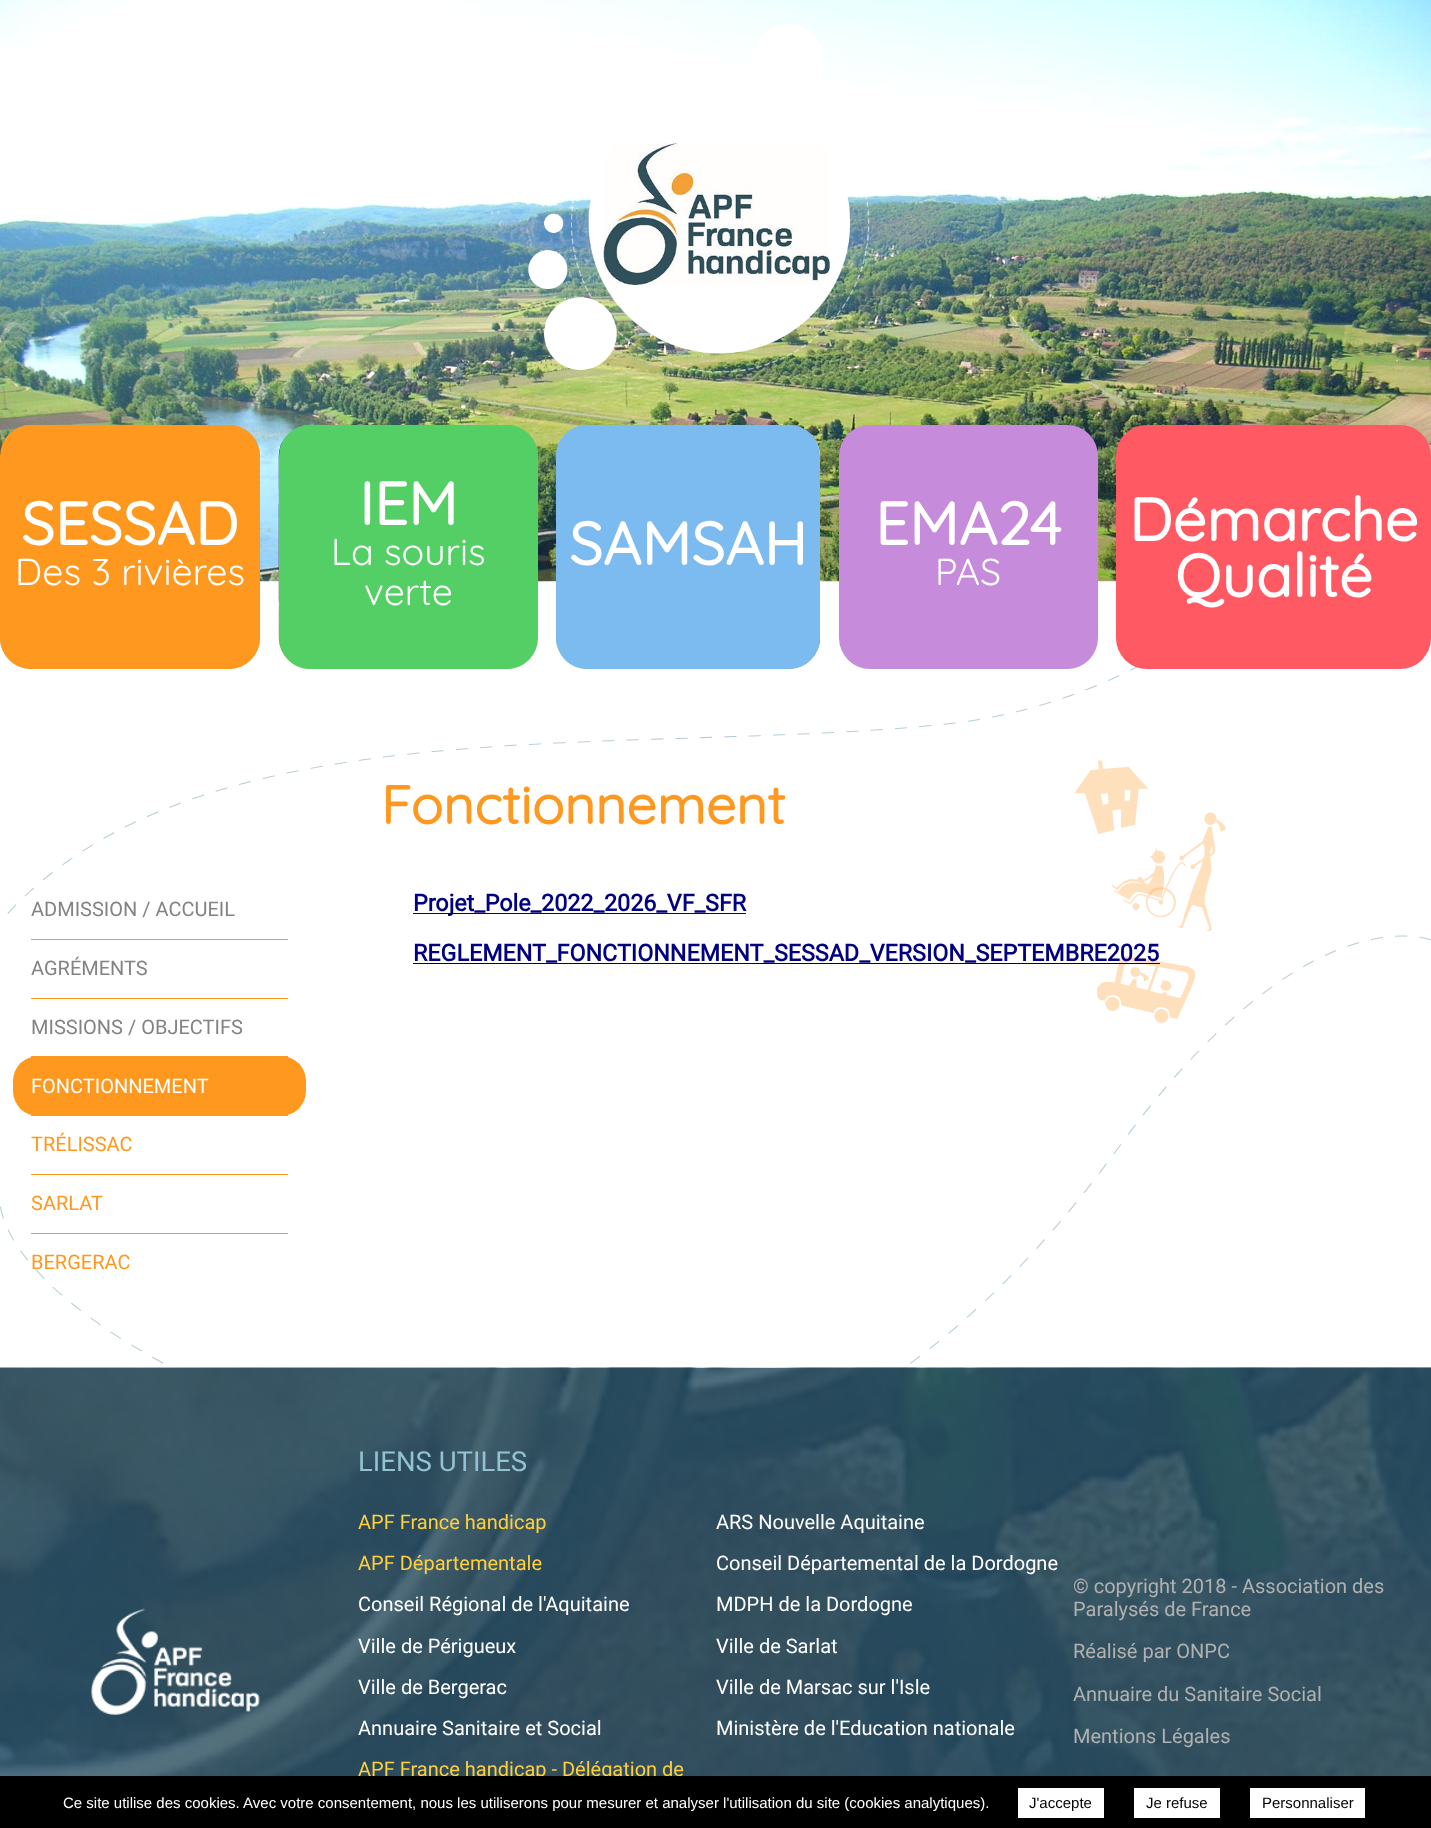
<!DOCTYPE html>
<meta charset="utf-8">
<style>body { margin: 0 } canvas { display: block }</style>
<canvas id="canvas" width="1431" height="1828"></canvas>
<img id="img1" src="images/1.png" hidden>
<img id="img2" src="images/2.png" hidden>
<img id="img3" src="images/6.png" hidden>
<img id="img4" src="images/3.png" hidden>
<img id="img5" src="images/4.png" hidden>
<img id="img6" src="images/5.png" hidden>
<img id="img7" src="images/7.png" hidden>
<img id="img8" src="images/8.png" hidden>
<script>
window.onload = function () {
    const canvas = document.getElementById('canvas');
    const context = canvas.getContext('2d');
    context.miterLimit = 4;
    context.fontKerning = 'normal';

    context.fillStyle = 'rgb(255, 255, 255)';
    context.fillRect(0, 0, 1431, 1828);
    context.drawImage(document.getElementById('img1'), 0, 0, 1431, 582);
    context.drawImage(document.getElementById('img2'), 528, 24, 342, 349);
    context.drawImage(document.getElementById('img3'), 0, 667, 1431, 697);
    context.drawImage(document.getElementById('img4'), 0, 425, 260, 244);
    context.fillStyle = 'rgb(255, 152, 31)';
    context.beginPath();
    context.roundRect(0, 425, 260, 244, 31);
    context.fill();
    context.drawImage(document.getElementById('img5'), 278, 425, 260, 244);
    context.fillStyle = 'rgb(84, 207, 102)';
    context.beginPath();
    context.roundRect(279, 425, 259, 244, 31);
    context.fill();
    context.drawImage(document.getElementById('img6'), 556, 425, 265, 244);
    context.fillStyle = 'rgb(124, 187, 239)';
    context.beginPath();
    context.roundRect(556, 425, 264, 244, 31);
    context.fill();
    context.fillStyle = 'rgb(198, 140, 219)';
    context.beginPath();
    context.roundRect(839, 425, 259, 244, 31);
    context.fill();
    context.fillStyle = 'rgb(255, 89, 100)';
    context.beginPath();
    context.roundRect(1116, 425, 315, 244, 31);
    context.fill();
    context.fillStyle = 'rgb(0, 0, 128)';
    context.fillRect(413, 913, 333, 1);
    context.fillStyle = 'rgb(11, 11, 11)';
    context.fillRect(413, 963, 747, 1);
    context.fillStyle = 'rgb(255, 152, 31)';
    context.fillRect(31, 939, 257, 1);
    context.fillRect(31, 998, 257, 1);
    context.fillRect(31, 1056, 257, 1);
    context.beginPath();
    context.roundRect(13, 1056, 293, 60, 25);
    context.fill();
    context.fillRect(31, 1115, 257, 1);
    context.fillRect(31, 1174, 257, 1);
    context.fillRect(31, 1233, 257, 1);
    context.drawImage(document.getElementById('img7'), 0, 1367, 1431, 409);
    context.drawImage(document.getElementById('img8'), 91, 1608, 169, 107);
    context.font = 'bold 60px Quicksand';
    context.fillStyle = 'rgb(255, 255, 255)';
    context.fillText('SESSAD', 21, 545);
    context.font = '300 37.5px Quicksand';
    context.fillText('Des 3 rivières', 15, 585);
    context.font = 'bold 60px Quicksand';
    context.fillText('IEM', 359, 525);
    context.font = '300 37.5px Quicksand';
    context.fillText('La souris', 331, 565);
    context.fillText('verte', 364, 605);
    context.font = 'bold 60px Quicksand';
    context.fillText('SAMSAH', 569, 565);
    context.fillText('EMA24', 875, 545);
    context.font = '300 37.5px Quicksand';
    context.fillText('PAS', 935, 585);
    context.font = 'bold 60px Quicksand';
    context.fillText('Démarche', 1129, 541);
    context.fillText('Qualité', 1175, 597);
    context.font = 'bold 53.75px Quicksand';
    context.fillStyle = 'rgb(255, 152, 31)';
    context.fillText('Fonctionnement', 381, 824);
    context.font = 'bold 23.3px Roboto';
    context.fillStyle = 'rgb(0, 0, 128)';
    context.fillText('Projet_Pole_2022_2026_VF_SFR', 413, 911);
    context.fillText('REGLEMENT_FONCTIONNEMENT_SESSAD_VERSION_SEPTEMBRE2025', 413, 961);
    context.font = '20px Roboto';
    context.fillStyle = 'rgb(131, 131, 131)';
    context.fillText('ADMISSION / ACCUEIL', 31, 916);
    context.fillText('AGRÉMENTS', 31, 975);
    context.fillText('MISSIONS / OBJECTIFS', 31, 1034);
    context.fillStyle = 'rgb(255, 255, 255)';
    context.fillText('FONCTIONNEMENT', 31, 1093);
    context.fillStyle = 'rgb(255, 152, 31)';
    context.fillText('TRÉLISSAC', 31, 1151);
    context.fillText('SARLAT', 31, 1210);
    context.fillText('BERGERAC', 31, 1269);
    context.font = '27.5px Roboto';
    context.fillStyle = 'rgb(147, 194, 209)';
    context.fillText('LIENS UTILES', 358, 1471);
    context.font = '20px Roboto';
    context.fillStyle = 'rgb(255, 208, 59)';
    context.fillText('APF France handicap', 358, 1529);
    context.fillStyle = 'rgb(255, 255, 255)';
    context.fillText('ARS Nouvelle Aquitaine', 716, 1529);
    context.fillStyle = 'rgb(255, 208, 59)';
    context.fillText('APF Départementale', 358, 1570);
    context.fillStyle = 'rgb(255, 255, 255)';
    context.fillText('Conseil Départemental de la Dordogne', 716, 1570);
    context.fillText('Conseil Régional de l\'Aquitaine', 358, 1611);
    context.fillText('MDPH de la Dordogne', 716, 1611);
    context.fillText('Ville de Périgueux', 358, 1653);
    context.fillText('Ville de Sarlat', 716, 1653);
    context.fillText('Ville de Bergerac', 358, 1694);
    context.fillText('Ville de Marsac sur l\'Isle', 716, 1694);
    context.fillText('Annuaire Sanitaire et Social', 358, 1735);
    context.fillText('Ministère de l\'Education nationale', 716, 1735);
    context.fillStyle = 'rgb(255, 208, 59)';
    context.fillText('APF France handicap - Délégation de', 358, 1776);
    context.fillStyle = 'rgb(177, 177, 177)';
    context.fillText('© copyright 2018 - Association des', 1073, 1593);
    context.fillText('Paralysés de France', 1073, 1616);
    context.fillText('Réalisé par ONPC', 1073, 1658);
    context.fillText('Annuaire du Sanitaire Social', 1073, 1701);
    context.fillText('Mentions Légales', 1073, 1743);
    context.fillStyle = 'rgb(0, 0, 0)';
    context.fillRect(0, 1776, 1431, 52);
    context.font = '15px Liberation Sans';
    context.fillStyle = 'rgb(255, 255, 255)';
    context.fillText('Ce site utilise des cookies. Avec votre consentement, nous les utiliserons pour mesurer et analyser l\'utilisation du site (cookies analytiques).', 63, 1808);
    context.fillRect(1018, 1788, 86, 30);
    context.fillStyle = 'rgb(0, 0, 0)';
    context.fillText('J\'accepte', 1029, 1808);
    context.fillStyle = 'rgb(255, 255, 255)';
    context.fillRect(1134, 1788, 86, 30);
    context.fillStyle = 'rgb(0, 0, 0)';
    context.fillText('Je refuse', 1146, 1808);
    context.fillStyle = 'rgb(255, 255, 255)';
    context.fillRect(1250, 1788, 115, 30);
    context.fillStyle = 'rgb(0, 0, 0)';
    context.fillText('Personnaliser', 1262, 1808);
};
</script>
